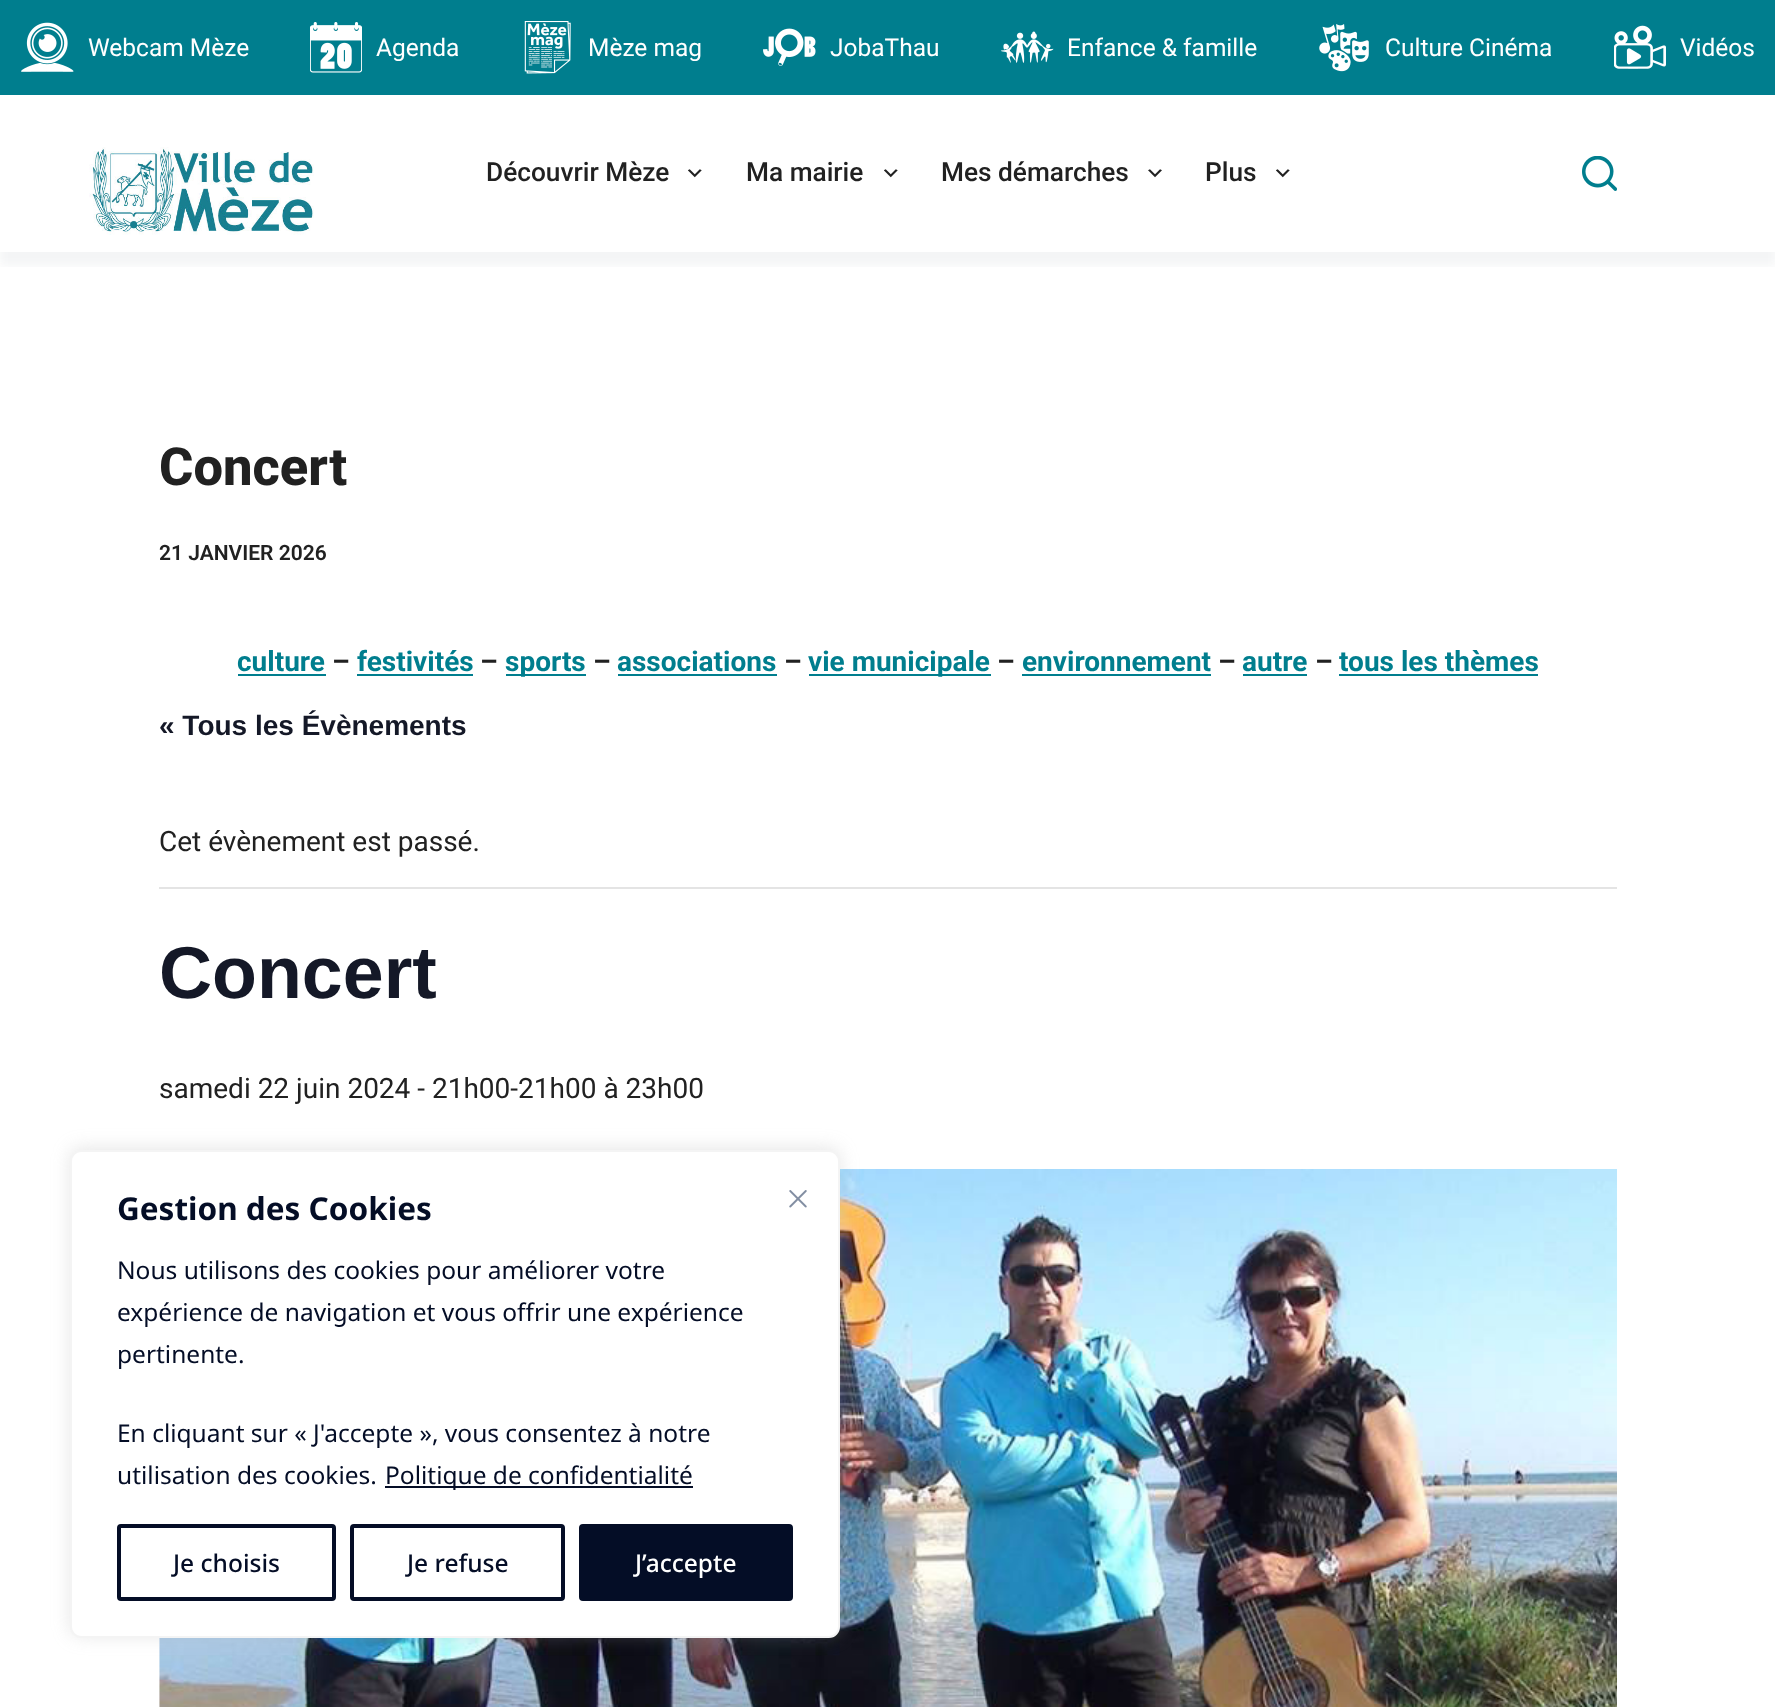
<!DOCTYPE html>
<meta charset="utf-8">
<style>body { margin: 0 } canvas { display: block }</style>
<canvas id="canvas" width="1775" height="1707"></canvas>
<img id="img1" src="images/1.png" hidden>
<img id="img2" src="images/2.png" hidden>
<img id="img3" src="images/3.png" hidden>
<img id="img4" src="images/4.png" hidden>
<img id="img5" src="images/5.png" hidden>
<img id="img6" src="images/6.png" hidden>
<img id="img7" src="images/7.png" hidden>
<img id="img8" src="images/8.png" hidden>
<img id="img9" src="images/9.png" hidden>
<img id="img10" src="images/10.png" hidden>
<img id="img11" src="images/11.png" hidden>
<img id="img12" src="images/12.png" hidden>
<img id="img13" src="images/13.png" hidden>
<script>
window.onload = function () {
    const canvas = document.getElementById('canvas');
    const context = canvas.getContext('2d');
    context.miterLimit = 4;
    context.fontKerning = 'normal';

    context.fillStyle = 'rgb(255, 255, 255)';
    context.fillRect(0, 0, 1775, 1707);
    context.fillStyle = 'rgb(0, 126, 142)';
    context.fillRect(0, 0, 1775, 95);
    context.drawImage(document.getElementById('img1'), 21, 22, 53, 50);
    context.drawImage(document.getElementById('img2'), 310, 22, 52, 51);
    context.drawImage(document.getElementById('img3'), 524, 21, 47, 53);
    context.drawImage(document.getElementById('img4'), 763, 28, 53, 38);
    context.drawImage(document.getElementById('img5'), 1001, 31, 53, 32);
    context.drawImage(document.getElementById('img6'), 1319, 24, 50, 48);
    context.drawImage(document.getElementById('img7'), 1614, 25, 52, 44);
    context.save();
    context.beginPath();
    context.rect(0, 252, 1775, 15);
    context.clip();
    context.fillStyle = 'rgba(44, 62, 80, 0.05)';
    context.filter = 'blur(5px)';
    context.beginPath();
    context.rect(0, 109, 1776, 157);
    context.fill();
    context.filter = 'none';
    context.restore();
    context.drawImage(document.getElementById('img8'), 89, 147, 225, 88);
    context.drawImage(document.getElementById('img9'), 688, 169, 14, 9);
    context.drawImage(document.getElementById('img9'), 884, 169, 14, 9);
    context.drawImage(document.getElementById('img10'), 1148, 169, 14, 9);
    context.drawImage(document.getElementById('img9'), 1276, 169, 14, 9);
    context.drawImage(document.getElementById('img11'), 1582, 156, 35, 35);
    context.fillRect(238, 674, 88, 2);
    context.fillRect(357, 674, 116, 2);
    context.fillRect(506, 674, 80, 2);
    context.fillRect(618, 674, 159, 2);
    context.fillRect(809, 674, 182, 2);
    context.fillRect(1022, 674, 189, 2);
    context.fillRect(1243, 674, 64, 2);
    context.fillRect(1339, 674, 199, 2);
    context.fillStyle = 'rgb(228, 228, 228)';
    context.fillRect(159, 887, 1458, 2);
    context.drawImage(document.getElementById('img12'), 159, 1169, 1458, 538);
    context.fillStyle = 'rgba(172, 171, 171, 0.3)';
    context.filter = 'blur(9px)';
    context.beginPath();
    context.roundRect(70, 1148, 770, 488, 11);
    context.fill();
    context.filter = 'none';
    context.fillStyle = 'rgb(255, 255, 255)';
    context.beginPath();
    context.roundRect(71, 1151, 768, 486, 10);
    context.fill();
    context.strokeStyle = 'rgb(244, 244, 244)';
    context.lineWidth = 2;
    context.stroke();
    context.fillStyle = 'rgb(4, 13, 38)';
    context.fillRect(385, 1486, 308, 2);
    context.beginPath();
    context.roundRect(119, 1526, 215, 73, 2);
    context.strokeStyle = 'rgb(4, 13, 38)';
    context.lineWidth = 4;
    context.stroke();
    context.beginPath();
    context.roundRect(352, 1526, 211, 73, 2);
    context.stroke();
    context.beginPath();
    context.roundRect(581, 1526, 210, 73, 2);
    context.fill();
    context.stroke();
    context.drawImage(document.getElementById('img13'), 789, 1190, 18, 18);
    context.font = '24.5px Roboto';
    context.fillStyle = 'rgb(255, 255, 255)';
    context.fillText('Webcam Mèze', 88, 56);
    context.fillText('Agenda', 376, 56);
    context.fillText('Mèze mag', 588, 56);
    context.fillText('JobaThau', 830, 56);
    context.fillText('Enfance & famille', 1067, 56);
    context.fillText('Culture Cinéma', 1385, 56);
    context.fillText('Vidéos', 1680, 56);
    context.font = '500 26.25px Roboto';
    context.fillStyle = 'rgb(33, 33, 33)';
    context.fillText('Découvrir Mèze', 486, 181);
    context.fillText('Ma mairie', 746, 181);
    context.fillText('Mes démarches', 941, 181);
    context.fillText('Plus', 1205, 181);
    context.font = '800 52.5px Roboto';
    context.fillText('Concert', 159, 485);
    context.font = '600 21px Roboto';
    context.fillText('21 JANVIER 2026', 159, 560);
    context.font = 'bold 28px Roboto';
    context.fillStyle = 'rgb(0, 126, 142)';
    context.fillText('culture', 237, 671);
    context.fillStyle = 'rgb(33, 33, 33)';
    context.fillText('–', 332, 671);
    context.fillStyle = 'rgb(0, 126, 142)';
    context.fillText('festivités', 357, 671);
    context.fillStyle = 'rgb(33, 33, 33)';
    context.fillText('–', 480, 671);
    context.fillStyle = 'rgb(0, 126, 142)';
    context.fillText('sports', 505, 671);
    context.fillStyle = 'rgb(33, 33, 33)';
    context.fillText('–', 593, 671);
    context.fillStyle = 'rgb(0, 126, 142)';
    context.fillText('associations', 617, 671);
    context.fillStyle = 'rgb(33, 33, 33)';
    context.fillText('–', 784, 671);
    context.fillStyle = 'rgb(0, 126, 142)';
    context.fillText('vie municipale', 808, 671);
    context.fillStyle = 'rgb(33, 33, 33)';
    context.fillText('–', 997, 671);
    context.fillStyle = 'rgb(0, 126, 142)';
    context.fillText('environnement', 1022, 671);
    context.fillStyle = 'rgb(33, 33, 33)';
    context.fillText('–', 1218, 671);
    context.fillStyle = 'rgb(0, 126, 142)';
    context.fillText('autre', 1242, 671);
    context.fillStyle = 'rgb(33, 33, 33)';
    context.fillText('–', 1315, 671);
    context.fillStyle = 'rgb(0, 126, 142)';
    context.fillText('tous les thèmes', 1339, 671);
    context.font = 'bold 28px Liberation Sans';
    context.fillStyle = 'rgb(20, 24, 39)';
    context.fillText('« Tous les Évènements', 159, 735);
    context.font = '28px Roboto';
    context.fillStyle = 'rgb(33, 33, 33)';
    context.fillText('Cet évènement est passé.', 159, 851);
    context.font = 'bold 73.5px Liberation Sans';
    context.fillStyle = 'rgb(20, 24, 39)';
    context.fillText('Concert', 159, 998);
    context.font = '28px Roboto';
    context.fillStyle = 'rgb(33, 33, 33)';
    context.fillText('samedi 22 juin 2024 - 21h00-21h00 à 23h00', 159, 1098);
    context.font = 'bold 31.5px Noto Sans';
    context.fillStyle = 'rgb(4, 13, 38)';
    context.fillText('Gestion des Cookies', 117, 1220);
    context.font = '24.5px Noto Sans';
    context.fillText('Nous utilisons des cookies pour améliorer votre', 117, 1279);
    context.fillText('expérience de navigation et vous offrir une expérience', 117, 1321);
    context.fillText('pertinente.', 117, 1363);
    context.fillText('En cliquant sur « J\'accepte », vous consentez à notre', 117, 1442);
    context.fillText('utilisation des cookies.', 117, 1484);
    context.fillText('Politique de confidentialité', 385, 1484);
    context.font = '500 24.5px Noto Sans';
    context.fillText('Je choisis', 173, 1572);
    context.fillText('Je refuse', 407, 1572);
    context.fillStyle = 'rgb(255, 255, 255)';
    context.fillText('J’accepte', 635, 1572);
};
</script>
